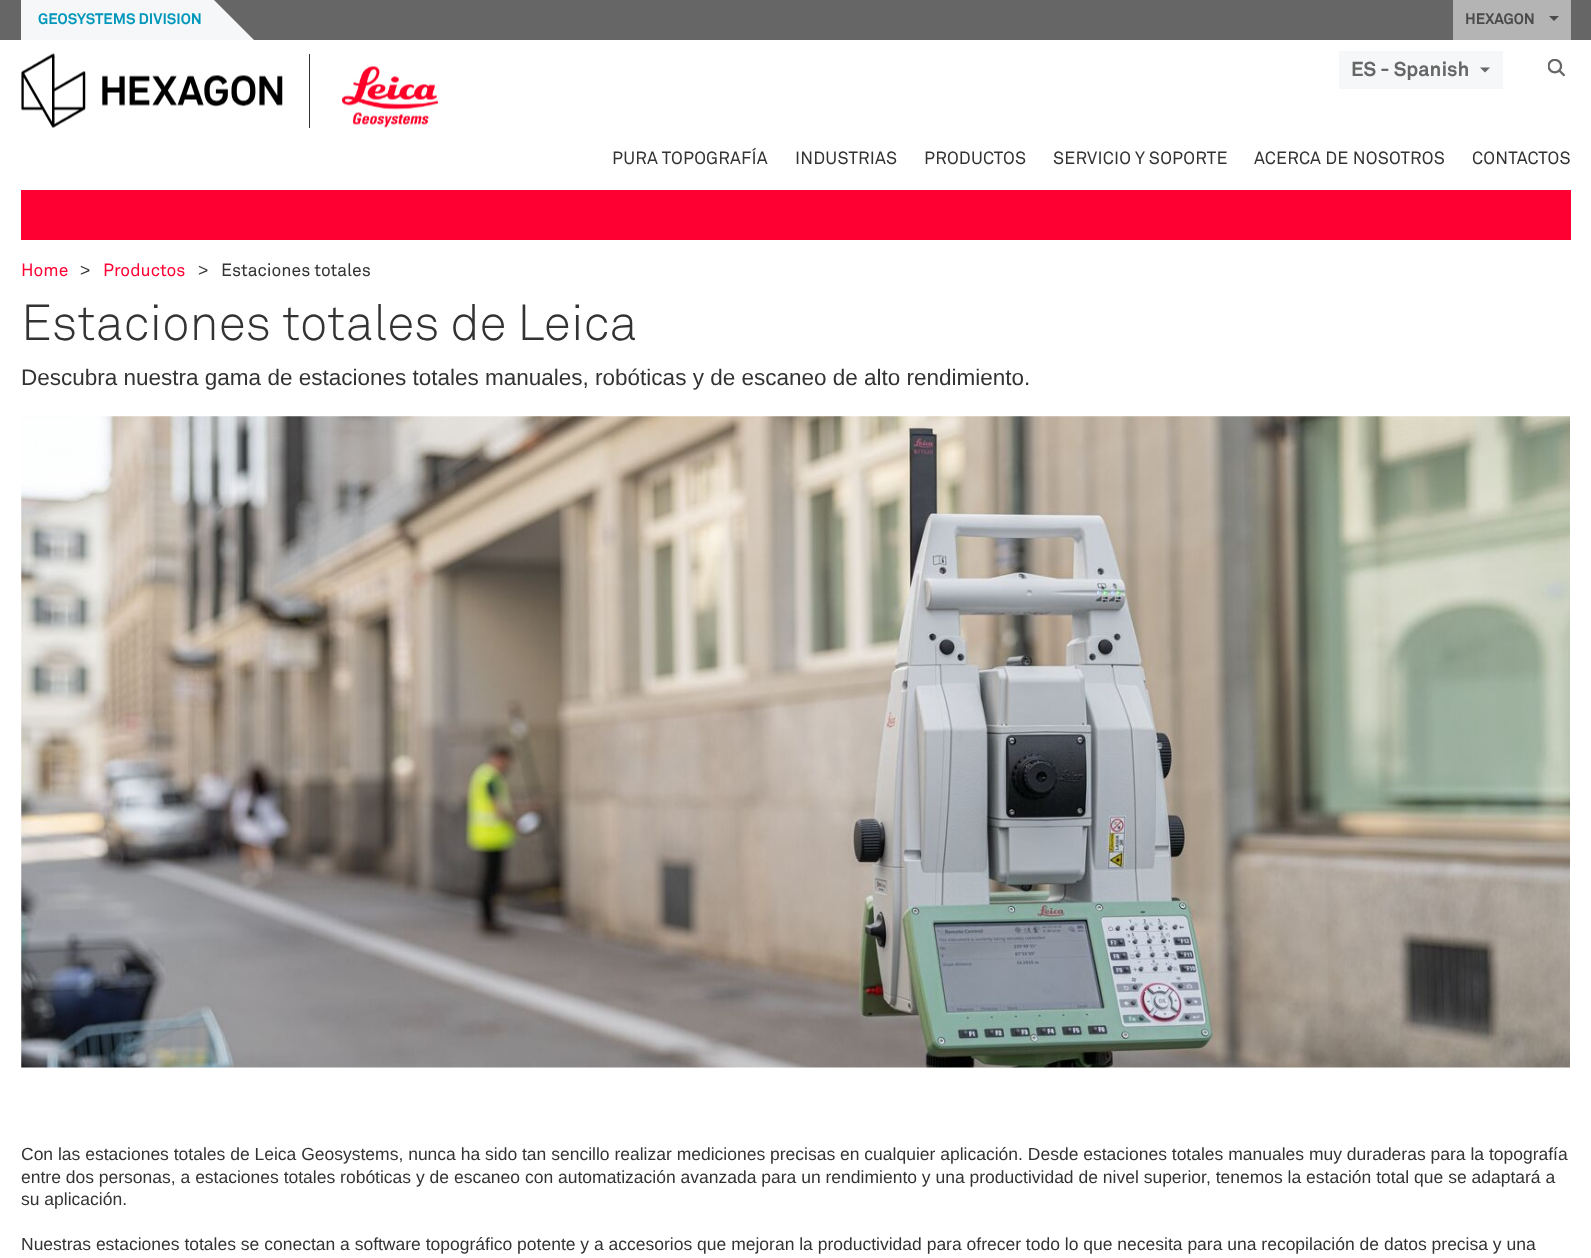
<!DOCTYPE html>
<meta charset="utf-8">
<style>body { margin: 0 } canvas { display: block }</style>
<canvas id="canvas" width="1591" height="1258"></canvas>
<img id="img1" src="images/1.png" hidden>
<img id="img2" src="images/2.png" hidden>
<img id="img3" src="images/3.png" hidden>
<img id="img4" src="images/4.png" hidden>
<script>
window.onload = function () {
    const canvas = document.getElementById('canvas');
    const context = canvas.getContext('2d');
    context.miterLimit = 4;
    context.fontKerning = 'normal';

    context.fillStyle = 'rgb(255, 255, 255)';
    context.fillRect(0, 0, 1591, 1258);
    context.fillStyle = 'rgb(102, 102, 102)';
    context.fillRect(0, 0, 1591, 40);
    context.fillStyle = 'rgb(245, 247, 248)';
    context.fillRect(21, 0, 193, 40);
    context.beginPath();
    context.moveTo(254, 40);
    context.lineTo(214, 40);
    context.lineTo(214, 0);
    context.closePath();
    context.fill();
    context.fillStyle = 'rgb(180, 180, 180)';
    context.fillRect(1453, 0, 118, 40);
    context.fillStyle = 'rgb(74, 74, 74)';
    context.beginPath();
    context.moveTo(1549, 16);
    context.lineTo(1559, 16);
    context.lineTo(1554, 21);
    context.closePath();
    context.fill();
    context.fillStyle = 'rgb(51, 51, 51)';
    context.fillRect(309, 54, 1, 74);
    context.drawImage(document.getElementById('img1'), 21, 53, 262, 75);
    context.drawImage(document.getElementById('img2'), 342, 66, 96, 62);
    context.fillStyle = 'rgb(245, 247, 248)';
    context.fillRect(1339, 51, 164, 38);
    context.fillStyle = 'rgb(102, 102, 102)';
    context.beginPath();
    context.moveTo(1480, 67.5);
    context.lineTo(1490, 67.5);
    context.lineTo(1485, 72.5);
    context.closePath();
    context.fill();
    context.drawImage(document.getElementById('img3'), 1548, 59, 17, 17);
    context.fillStyle = 'rgb(255, 0, 51)';
    context.fillRect(21, 190, 1550, 50);
    context.drawImage(document.getElementById('img4'), 21, 416, 1549, 652);
    context.font = 'bold 15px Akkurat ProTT';
    context.fillStyle = 'rgb(0, 151, 186)';
    context.fillText('GEOSYSTEMS DIVISION', 38, 24);
    context.fillStyle = 'rgb(74, 74, 74)';
    context.fillText('HEXAGON', 1465, 24);
    context.font = 'bold 20px Akkurat ProTT';
    context.fillStyle = 'rgb(102, 102, 102)';
    context.fillText('ES - Spanish', 1351, 76);
    context.letterSpacing = '0.2px';
    context.font = '17.5px Akkurat ProTT';
    context.fillStyle = 'rgb(51, 51, 51)';
    context.fillText('PURA TOPOGRAFÍA', 612, 164);
    context.fillText('INDUSTRIAS', 795, 164);
    context.fillText('PRODUCTOS', 924, 164);
    context.fillText('SERVICIO Y SOPORTE', 1053, 164);
    context.fillText('ACERCA DE NOSOTROS', 1254, 164);
    context.fillText('CONTACTOS', 1472, 164);
    context.letterSpacing = '0px';
    context.fillStyle = 'rgb(255, 0, 51)';
    context.fillText('Home', 21, 276);
    context.font = '17.5px Liberation Sans';
    context.fillStyle = 'rgb(51, 51, 51)';
    context.fillText('>', 80, 276);
    context.font = '17.5px Akkurat ProTT';
    context.fillStyle = 'rgb(255, 0, 51)';
    context.fillText('Productos', 103, 276);
    context.font = '17.5px Liberation Sans';
    context.fillStyle = 'rgb(51, 51, 51)';
    context.fillText('>', 198, 276);
    context.font = '17.5px Akkurat ProTT';
    context.fillText('Estaciones totales', 221, 276);
    context.font = '300 50px Akkurat ProTT';
    context.fillText('Estaciones totales de Leica', 21, 340);
    context.font = '22.5px Liberation Sans';
    context.fillText('Descubra nuestra gama de estaciones totales manuales, robóticas y de escaneo de alto rendimiento.', 21, 385);
    context.font = '17.5px Liberation Sans';
    context.fillText('Con las estaciones totales de Leica Geosystems, nunca ha sido tan sencillo realizar mediciones precisas en cualquier aplicación. Desde estaciones totales manuales muy duraderas para la topografía', 21, 1160);
    context.fillText('entre dos personas, a estaciones totales robóticas y de escaneo con automatización avanzada para un rendimiento y una productividad de nivel superior, tenemos la estación total que se adaptará a', 21, 1183);
    context.fillText('su aplicación.', 21, 1205);
    context.fillText('Nuestras estaciones totales se conectan a software topográfico potente y a accesorios que mejoran la productividad para ofrecer todo lo que necesita para una recopilación de datos precisa y una', 21, 1250);
};
</script>
